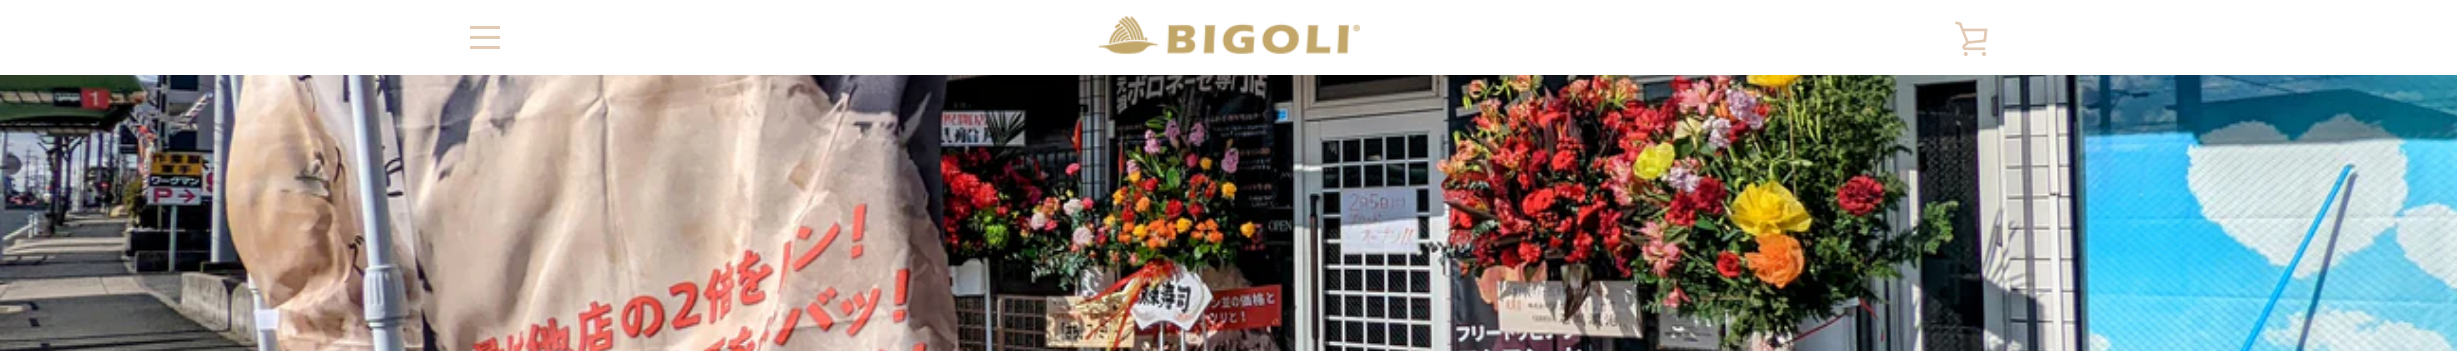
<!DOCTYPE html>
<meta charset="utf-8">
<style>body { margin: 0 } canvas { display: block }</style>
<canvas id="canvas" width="2457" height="351"></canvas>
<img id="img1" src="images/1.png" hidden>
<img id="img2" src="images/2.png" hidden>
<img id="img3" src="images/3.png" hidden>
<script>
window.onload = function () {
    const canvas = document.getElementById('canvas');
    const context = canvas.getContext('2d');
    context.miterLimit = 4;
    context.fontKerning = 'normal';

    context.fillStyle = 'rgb(255, 255, 255)';
    context.fillRect(0, 0, 2457, 351);
    context.fillStyle = 'rgb(225, 201, 180)';
    context.fillRect(470, 26, 30, 3);
    context.fillRect(470, 36, 30, 3);
    context.fillRect(470, 46, 30, 3);
    context.drawImage(document.getElementById('img1'), 1098, 16, 262, 38);
    context.drawImage(document.getElementById('img2'), 1955, 21, 33, 35);
    context.drawImage(document.getElementById('img3'), 0, 75, 2457, 276);
};
</script>
